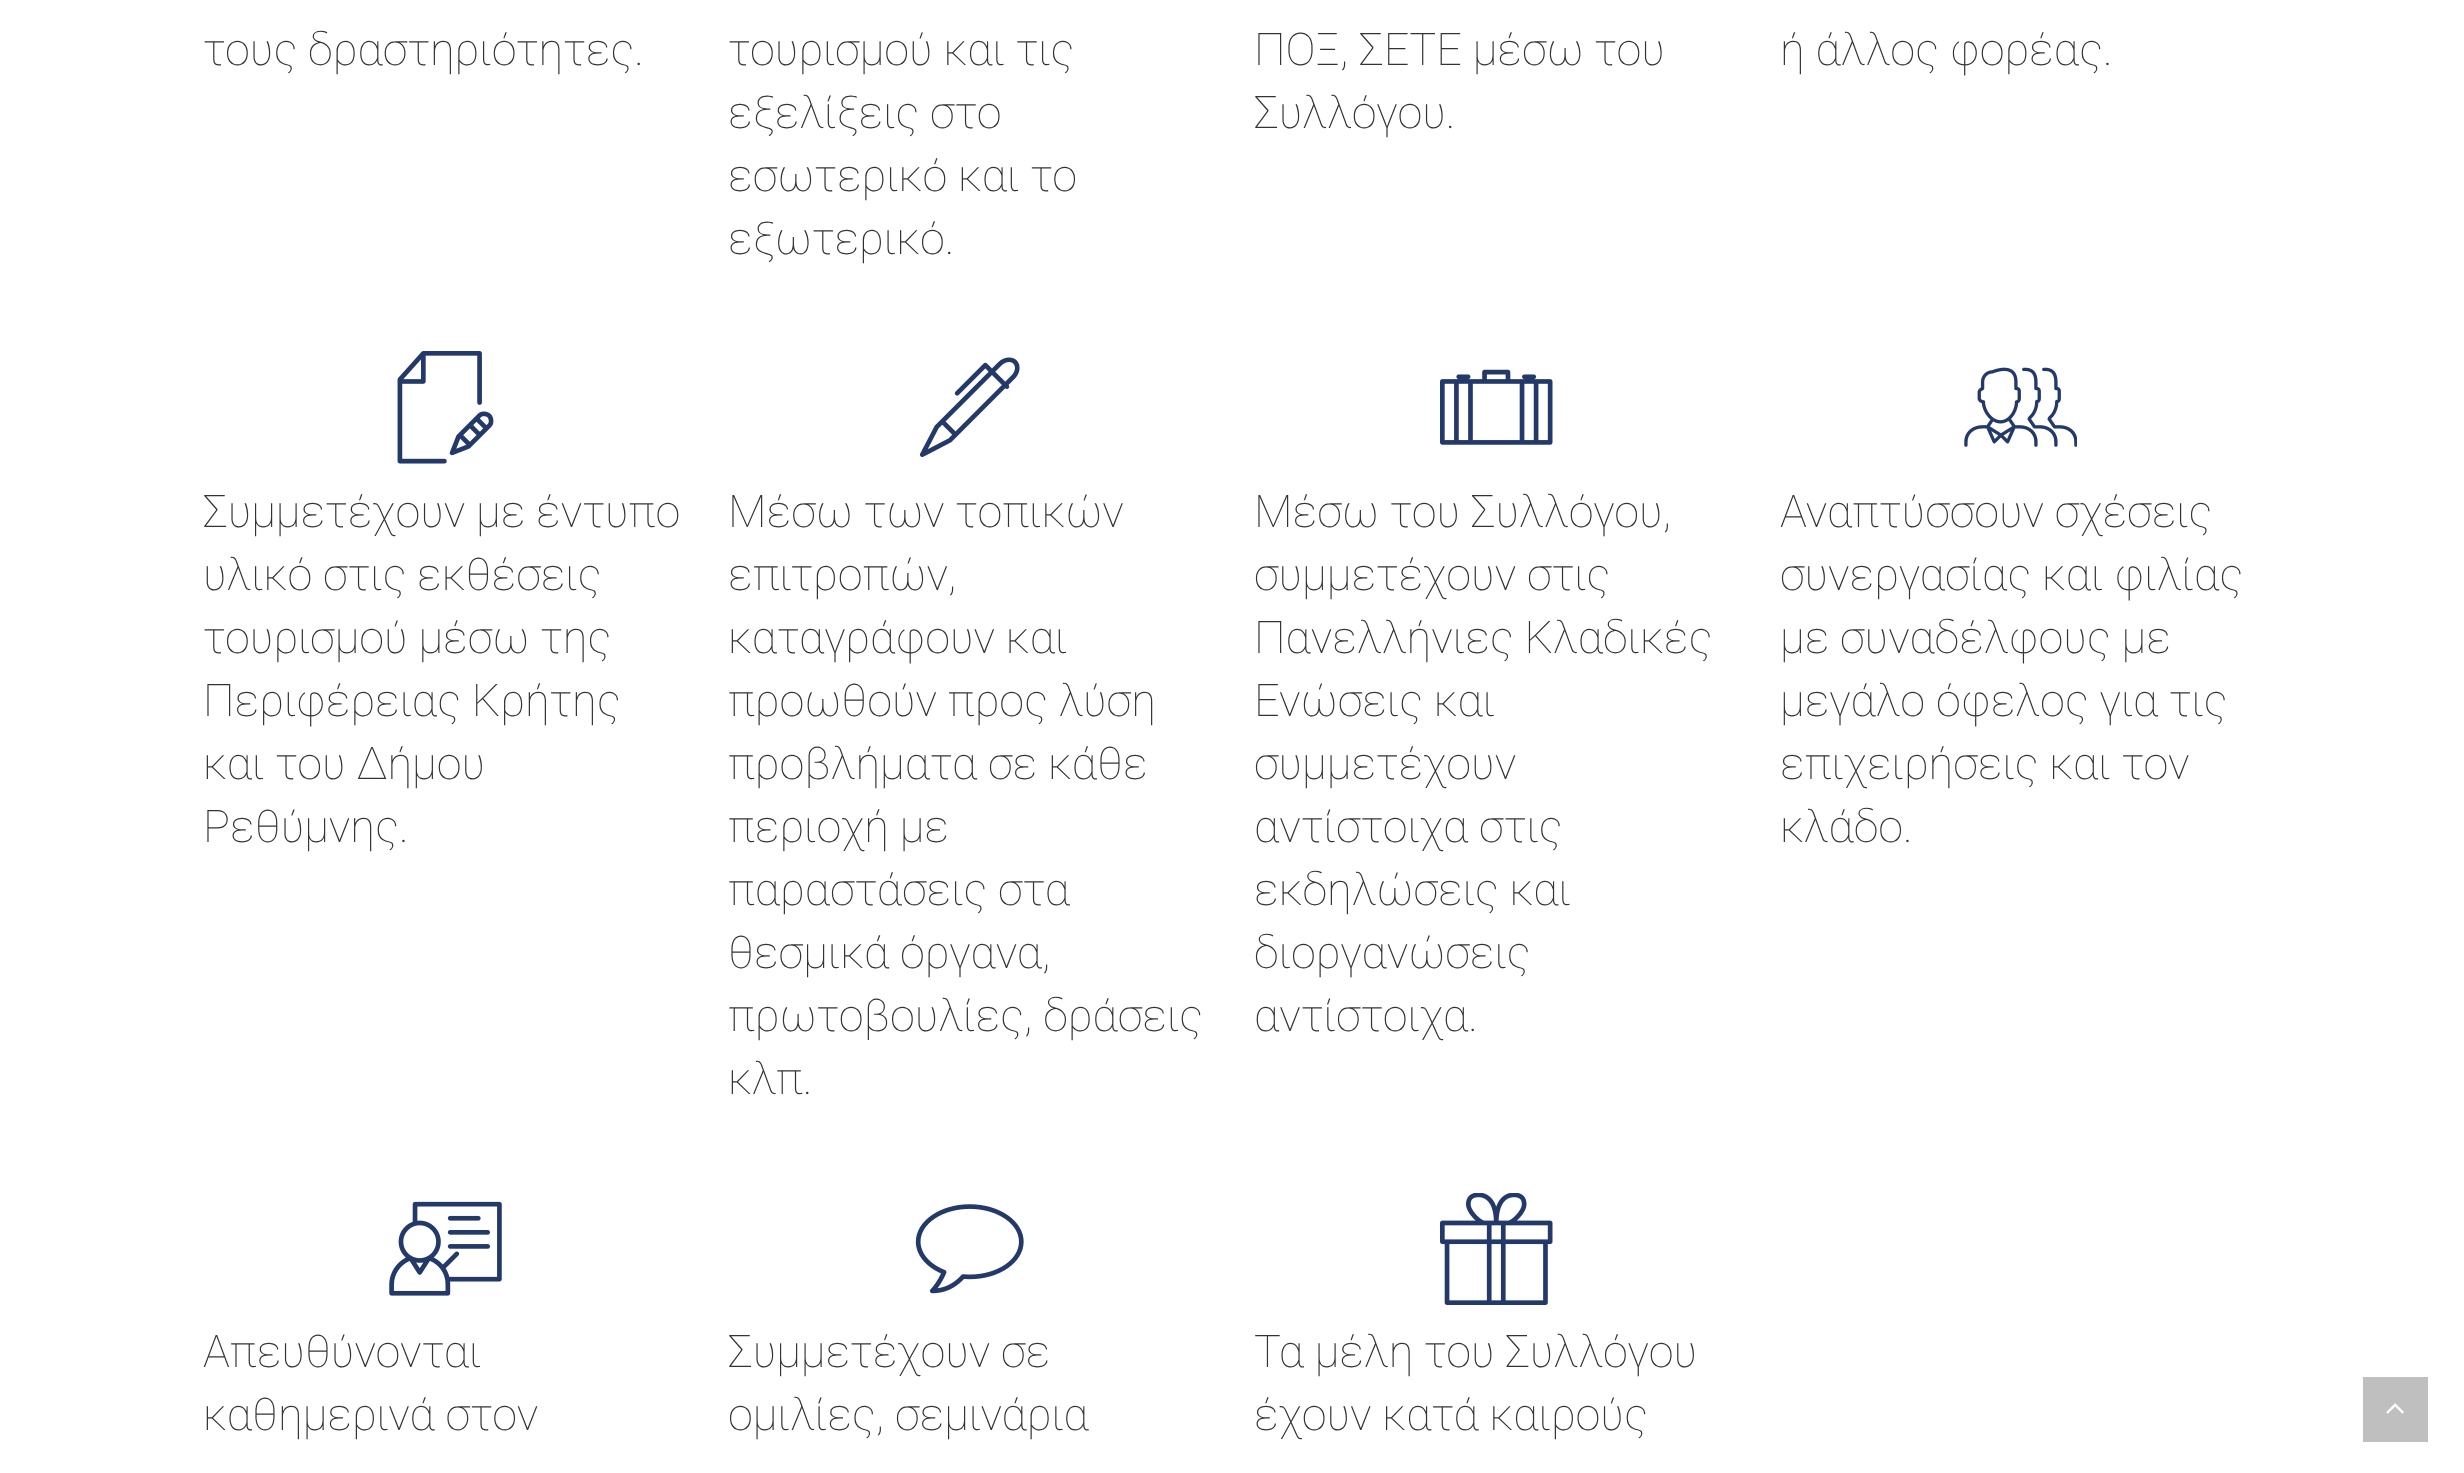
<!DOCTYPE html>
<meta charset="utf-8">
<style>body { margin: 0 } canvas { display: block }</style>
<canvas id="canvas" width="2464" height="1473"></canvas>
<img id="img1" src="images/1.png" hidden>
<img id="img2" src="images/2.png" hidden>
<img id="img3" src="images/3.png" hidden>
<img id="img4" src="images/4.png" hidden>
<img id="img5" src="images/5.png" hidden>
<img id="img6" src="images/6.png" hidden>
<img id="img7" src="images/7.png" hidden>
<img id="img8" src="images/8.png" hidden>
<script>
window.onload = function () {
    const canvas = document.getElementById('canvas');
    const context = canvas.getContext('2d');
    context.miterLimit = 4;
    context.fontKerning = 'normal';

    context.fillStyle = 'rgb(255, 255, 255)';
    context.fillRect(0, 0, 2464, 1473);
    context.drawImage(document.getElementById('img1'), 397, 351, 97, 113);
    context.drawImage(document.getElementById('img2'), 919, 357, 101, 100);
    context.drawImage(document.getElementById('img3'), 1440, 369, 113, 76);
    context.drawImage(document.getElementById('img4'), 1964, 367, 113, 80);
    context.drawImage(document.getElementById('img5'), 389, 1201, 113, 95);
    context.drawImage(document.getElementById('img6'), 915, 1204, 109, 90);
    context.drawImage(document.getElementById('img7'), 1440, 1193, 113, 112);
    context.fillStyle = 'rgb(191, 191, 191)';
    context.fillRect(2363, 1377, 65, 65);
    context.drawImage(document.getElementById('img8'), 2386, 1403, 18, 11);
    context.font = '100 45px Roboto';
    context.fillStyle = 'rgb(51, 51, 51)';
    context.fillText('τους δραστηριότητες.', 203, 65);
    context.fillText('τουρισμού και τις', 728, 65);
    context.fillText('εξελίξεις στο', 728, 128);
    context.fillText('εσωτερικό και το', 728, 191);
    context.fillText('εξωτερικό.', 728, 254);
    context.fillText('ΠΟΞ, ΣΕΤΕ μέσω του', 1254, 65);
    context.fillText('Συλλόγου.', 1254, 128);
    context.fillText('ή άλλος φορέας.', 1780, 65);
    context.fillText('Συμμετέχουν με έντυπο', 203, 527);
    context.fillText('υλικό στις εκθέσεις', 203, 590);
    context.fillText('τουρισμού μέσω της', 203, 653);
    context.fillText('Περιφέρειας Κρήτης', 203, 716);
    context.fillText('και του Δήμου', 203, 779);
    context.fillText('Ρεθύμνης.', 203, 842);
    context.fillText('Μέσω των τοπικών', 728, 527);
    context.fillText('επιτροπών,', 728, 590);
    context.fillText('καταγράφουν και', 728, 653);
    context.fillText('προωθούν προς λύση', 728, 716);
    context.fillText('προβλήματα σε κάθε', 728, 779);
    context.fillText('περιοχή με', 728, 842);
    context.fillText('παραστάσεις στα', 728, 905);
    context.fillText('θεσμικά όργανα,', 728, 968);
    context.fillText('πρωτοβουλίες, δράσεις', 728, 1031);
    context.fillText('κλπ.', 728, 1094);
    context.fillText('Μέσω του Συλλόγου,', 1254, 527);
    context.fillText('συμμετέχουν στις', 1254, 590);
    context.fillText('Πανελλήνιες Κλαδικές', 1254, 653);
    context.fillText('Ενώσεις και', 1254, 716);
    context.fillText('συμμετέχουν', 1254, 779);
    context.fillText('αντίστοιχα στις', 1254, 842);
    context.fillText('εκδηλώσεις και', 1254, 905);
    context.fillText('διοργανώσεις', 1254, 968);
    context.fillText('αντίστοιχα.', 1254, 1031);
    context.fillText('Αναπτύσσουν σχέσεις', 1780, 527);
    context.fillText('συνεργασίας και φιλίας', 1780, 590);
    context.fillText('με συναδέλφους με', 1780, 653);
    context.fillText('μεγάλο όφελος για τις', 1780, 716);
    context.fillText('επιχειρήσεις και τον', 1780, 779);
    context.fillText('κλάδο.', 1780, 842);
    context.fillText('Απευθύνονται', 203, 1367);
    context.fillText('καθημερινά στον', 203, 1430);
    context.fillText('Συμμετέχουν σε', 728, 1367);
    context.fillText('ομιλίες, σεμινάρια', 728, 1430);
    context.fillText('Τα μέλη του Συλλόγου', 1254, 1367);
    context.fillText('έχουν κατά καιρούς', 1254, 1430);
};
</script>
